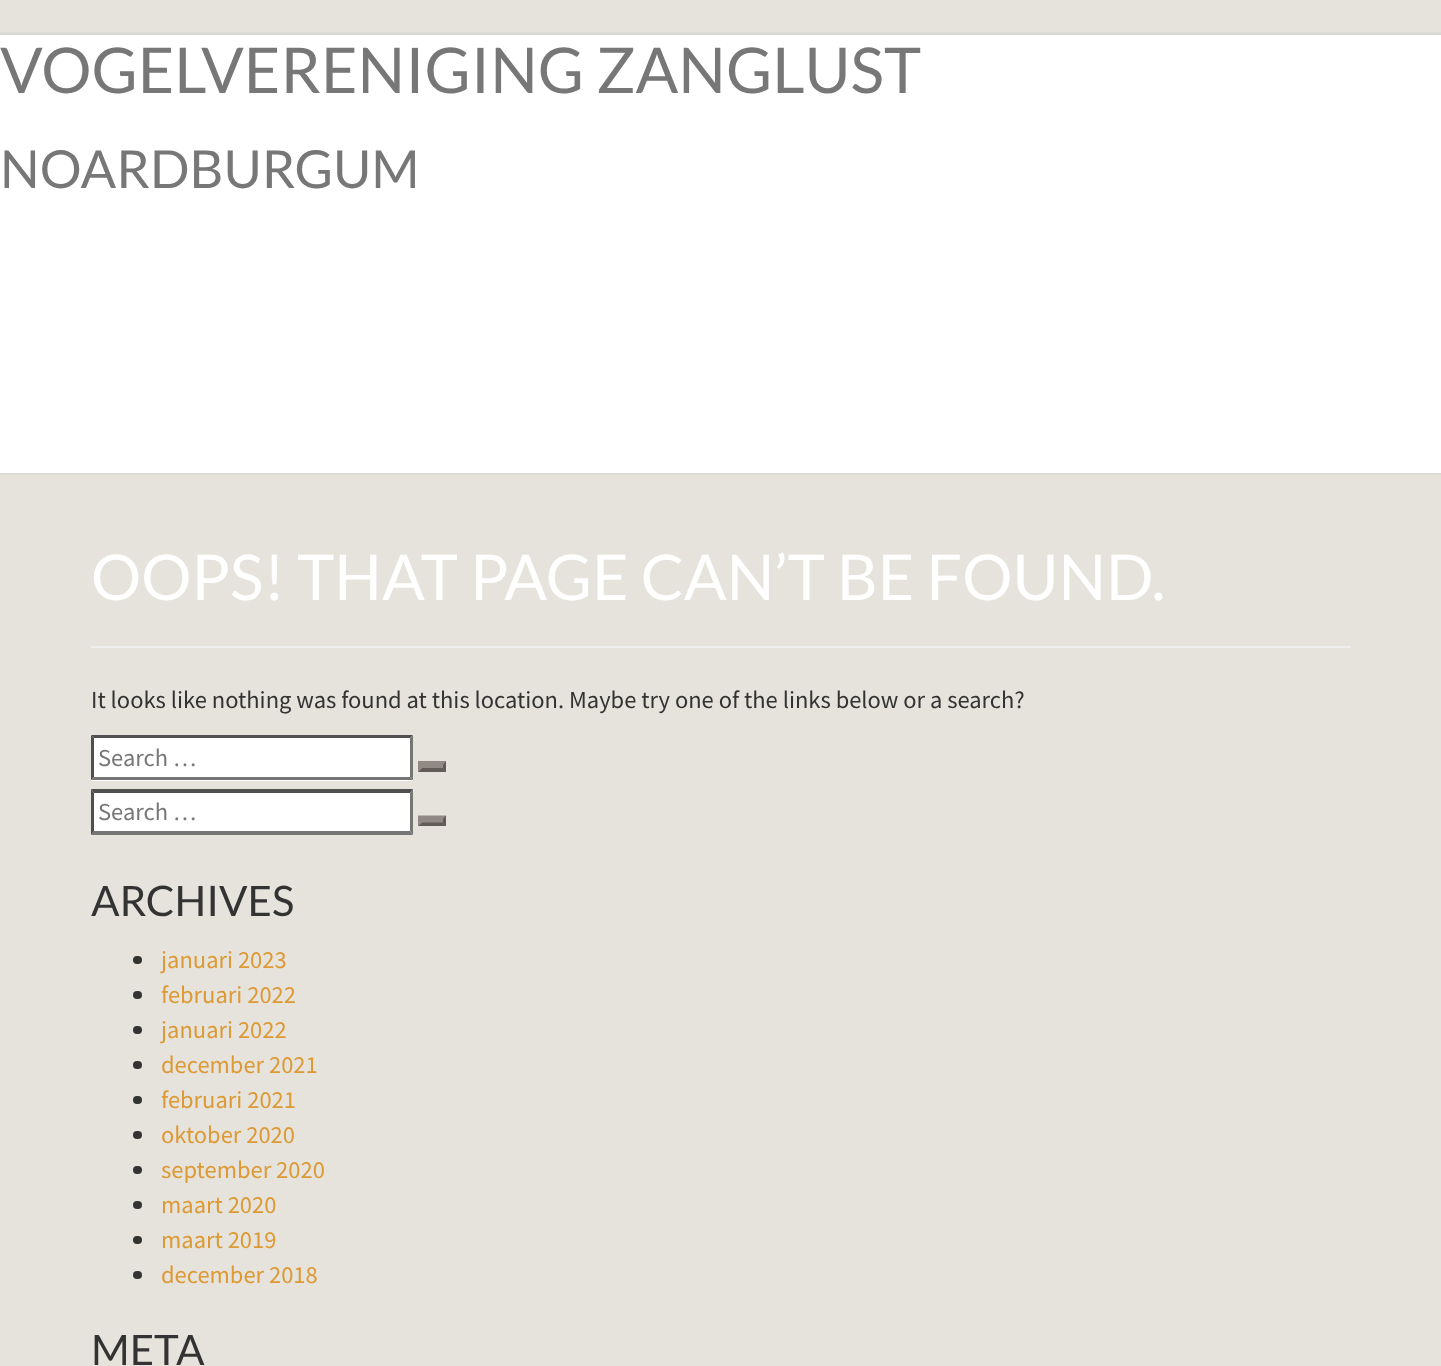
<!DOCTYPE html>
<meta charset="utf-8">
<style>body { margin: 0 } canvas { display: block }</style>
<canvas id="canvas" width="1441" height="1366"></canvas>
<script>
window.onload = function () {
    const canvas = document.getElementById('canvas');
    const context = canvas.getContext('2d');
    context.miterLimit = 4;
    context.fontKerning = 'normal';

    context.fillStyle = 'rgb(229, 227, 220)';
    context.fillRect(0, 0, 1441, 1366);
    context.fillStyle = 'rgba(182, 182, 182, 0.3)';
    context.filter = 'blur(1px)';
    context.beginPath();
    context.rect(-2, 33, 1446, 441);
    context.fill();
    context.filter = 'none';
    context.fillStyle = 'rgb(255, 255, 255)';
    context.fillRect(0, 35, 1441, 438);
    context.fillStyle = 'rgb(238, 238, 238)';
    context.fillRect(91, 646, 1260, 2);
    context.fillStyle = 'rgb(255, 255, 255)';
    context.fillRect(91, 735, 322, 46);
    context.fillStyle = 'rgb(79, 79, 79)';
    context.beginPath();
    context.moveTo(91, 735);
    context.lineTo(413, 735);
    context.lineTo(410, 738);
    context.lineTo(94, 738);
    context.closePath();
    context.fill();
    context.fillStyle = 'rgb(118, 118, 118)';
    context.beginPath();
    context.moveTo(413, 735);
    context.lineTo(413, 780);
    context.lineTo(410, 777);
    context.lineTo(410, 738);
    context.closePath();
    context.fill();
    context.beginPath();
    context.moveTo(413, 780);
    context.lineTo(91, 780);
    context.lineTo(94, 777);
    context.lineTo(410, 777);
    context.closePath();
    context.fill();
    context.fillStyle = 'rgb(79, 79, 79)';
    context.beginPath();
    context.moveTo(91, 780);
    context.lineTo(91, 735);
    context.lineTo(94, 738);
    context.lineTo(94, 777);
    context.closePath();
    context.fill();
    context.fillStyle = 'rgb(145, 138, 132)';
    context.fillRect(418, 761, 28, 11);
    context.fillStyle = 'rgb(97, 92, 88)';
    context.beginPath();
    context.moveTo(446, 761);
    context.lineTo(446, 772);
    context.lineTo(443, 768);
    context.lineTo(443, 765);
    context.closePath();
    context.fill();
    context.beginPath();
    context.moveTo(446, 772);
    context.lineTo(418, 772);
    context.lineTo(422, 768);
    context.lineTo(443, 768);
    context.closePath();
    context.fill();
    context.fillStyle = 'rgb(145, 138, 132)';
    context.beginPath();
    context.moveTo(418, 772);
    context.lineTo(418, 761);
    context.lineTo(422, 765);
    context.lineTo(422, 768);
    context.closePath();
    context.fill();
    context.fillStyle = 'rgb(255, 255, 255)';
    context.fillRect(91, 789, 322, 46);
    context.fillStyle = 'rgb(79, 79, 79)';
    context.beginPath();
    context.moveTo(91, 789);
    context.lineTo(413, 789);
    context.lineTo(410, 793);
    context.lineTo(94, 793);
    context.closePath();
    context.fill();
    context.fillStyle = 'rgb(118, 118, 118)';
    context.beginPath();
    context.moveTo(413, 789);
    context.lineTo(413, 835);
    context.lineTo(410, 831);
    context.lineTo(410, 793);
    context.closePath();
    context.fill();
    context.beginPath();
    context.moveTo(413, 835);
    context.lineTo(91, 835);
    context.lineTo(94, 831);
    context.lineTo(410, 831);
    context.closePath();
    context.fill();
    context.fillStyle = 'rgb(79, 79, 79)';
    context.beginPath();
    context.moveTo(91, 835);
    context.lineTo(91, 789);
    context.lineTo(94, 793);
    context.lineTo(94, 831);
    context.closePath();
    context.fill();
    context.fillStyle = 'rgb(145, 138, 132)';
    context.fillRect(418, 816, 28, 10);
    context.beginPath();
    context.moveTo(418, 815.5);
    context.lineTo(446, 815.5);
    context.lineTo(443, 819);
    context.lineTo(422, 819);
    context.closePath();
    context.fill();
    context.fillStyle = 'rgb(97, 92, 88)';
    context.beginPath();
    context.moveTo(446, 815.5);
    context.lineTo(446, 826);
    context.lineTo(443, 822.5);
    context.lineTo(443, 819);
    context.closePath();
    context.fill();
    context.beginPath();
    context.moveTo(446, 826);
    context.lineTo(418, 826);
    context.lineTo(422, 822.5);
    context.lineTo(443, 822.5);
    context.closePath();
    context.fill();
    context.fillStyle = 'rgb(145, 138, 132)';
    context.beginPath();
    context.moveTo(418, 826);
    context.lineTo(418, 815.5);
    context.lineTo(422, 819);
    context.lineTo(422, 822.5);
    context.closePath();
    context.fill();
    context.fillStyle = 'rgb(51, 51, 51)';
    context.beginPath();
    context.roundRect(133, 956, 9, 8, 4);
    context.fill();
    context.beginPath();
    context.roundRect(133, 991, 9, 8, 4);
    context.fill();
    context.beginPath();
    context.roundRect(133, 1026, 9, 8, 4);
    context.fill();
    context.beginPath();
    context.roundRect(133, 1061, 9, 8, 4);
    context.fill();
    context.beginPath();
    context.roundRect(133, 1096, 9, 8, 4);
    context.fill();
    context.beginPath();
    context.roundRect(133, 1131, 9, 8, 4);
    context.fill();
    context.beginPath();
    context.roundRect(133, 1166, 9, 8, 4);
    context.fill();
    context.beginPath();
    context.roundRect(133, 1201, 9, 8, 4);
    context.fill();
    context.beginPath();
    context.roundRect(133, 1236, 9, 8, 4);
    context.fill();
    context.beginPath();
    context.roundRect(133, 1271, 9, 8, 4);
    context.fill();
    context.font = '63px Lato';
    context.fillStyle = 'rgb(119, 119, 119)';
    context.fillText('VOGELVERENIGING ZANGLUST', 0, 93);
    context.font = '52.5px Lato';
    context.fillText('NOARDBURGUM', 0, 188);
    context.font = '63px Lato';
    context.fillStyle = 'rgb(255, 255, 255)';
    context.fillText('OOPS! THAT PAGE CAN’T BE FOUND.', 91, 600);
    context.font = '24.5px Source Sans Pro';
    context.fillStyle = 'rgb(51, 51, 51)';
    context.fillText('It looks like nothing was found at this location. Maybe try one of the links below or a search?', 91, 708);
    context.fillStyle = 'rgb(119, 119, 119)';
    context.fillText('Search …', 98, 766);
    context.fillText('Search …', 98, 820);
    context.font = '42px Lato';
    context.fillStyle = 'rgb(51, 51, 51)';
    context.fillText('ARCHIVES', 91, 916);
    context.font = '24.5px Source Sans Pro';
    context.fillStyle = 'rgb(221, 153, 51)';
    context.fillText('januari 2023', 161, 968);
    context.fillText('februari 2022', 161, 1003);
    context.fillText('januari 2022', 161, 1038);
    context.fillText('december 2021', 161, 1073);
    context.fillText('februari 2021', 161, 1108);
    context.fillText('oktober 2020', 161, 1143);
    context.fillText('september 2020', 161, 1178);
    context.fillText('maart 2020', 161, 1213);
    context.fillText('maart 2019', 161, 1248);
    context.fillText('december 2018', 161, 1283);
    context.font = '42px Lato';
    context.fillStyle = 'rgb(51, 51, 51)';
    context.fillText('META', 91, 1365);
};
</script>
